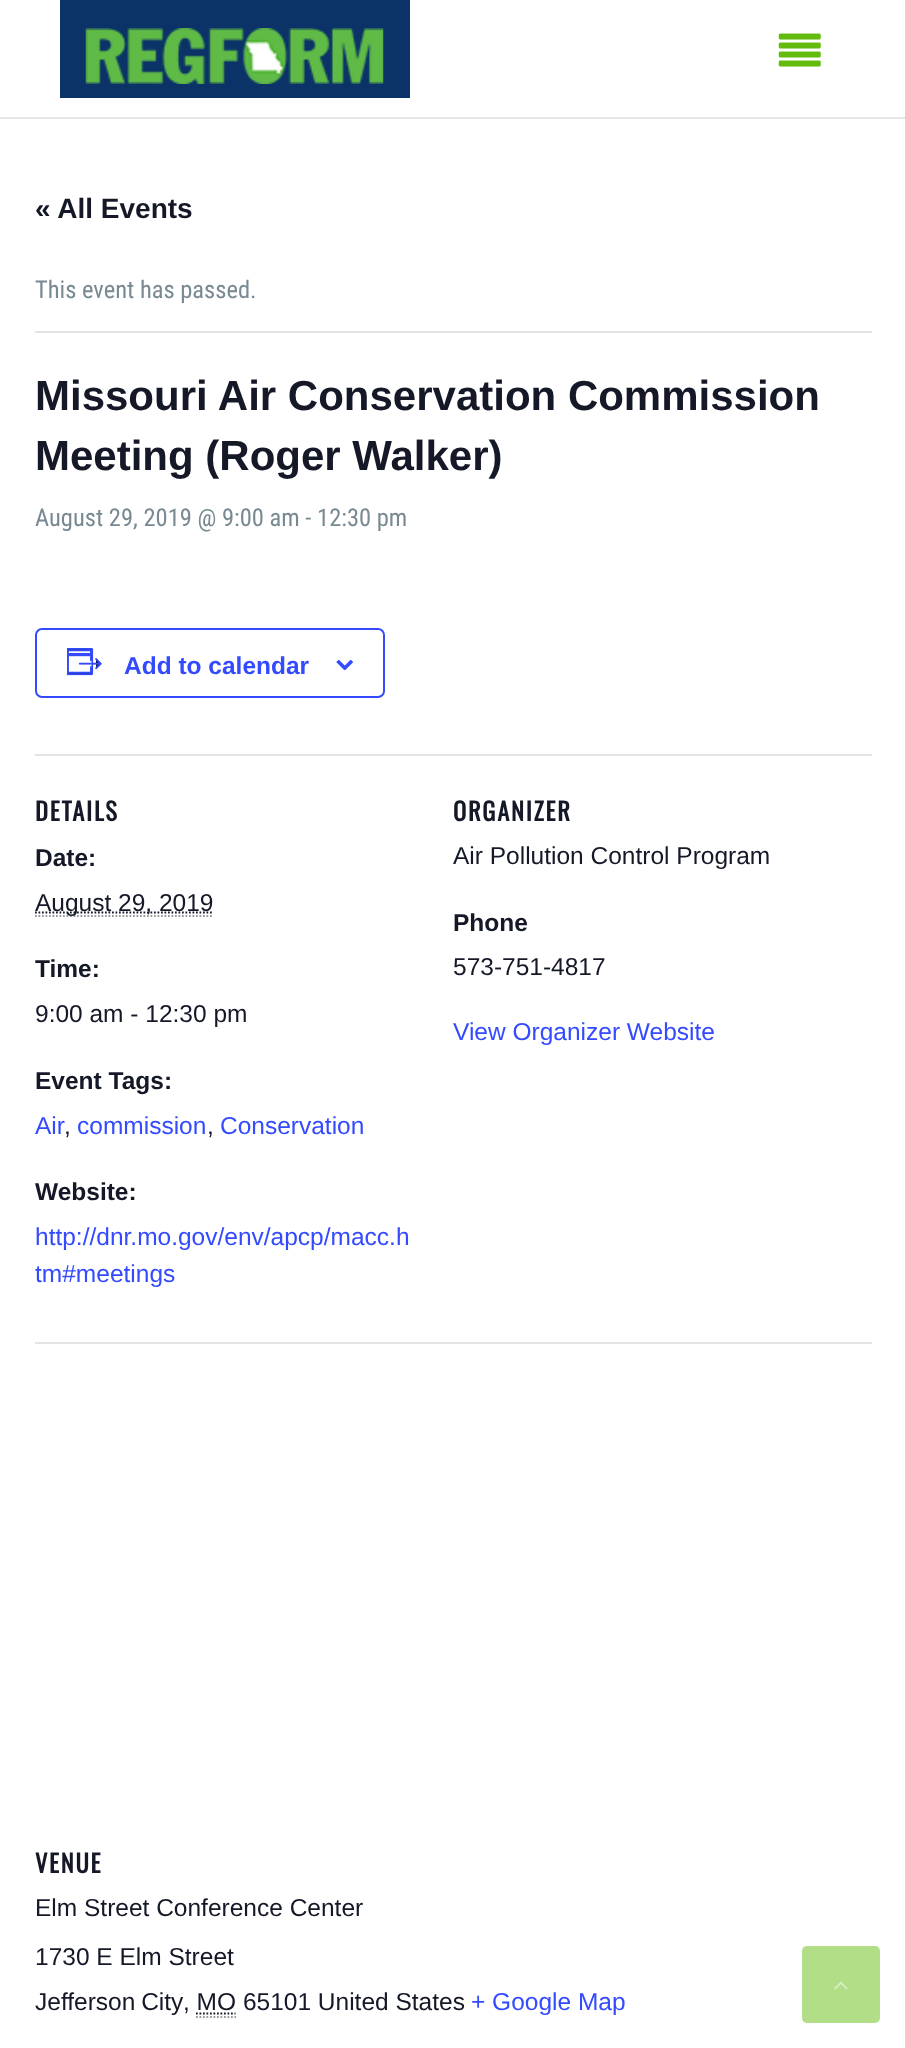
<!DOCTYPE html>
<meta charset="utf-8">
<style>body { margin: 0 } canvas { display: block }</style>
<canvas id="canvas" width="905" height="2048"></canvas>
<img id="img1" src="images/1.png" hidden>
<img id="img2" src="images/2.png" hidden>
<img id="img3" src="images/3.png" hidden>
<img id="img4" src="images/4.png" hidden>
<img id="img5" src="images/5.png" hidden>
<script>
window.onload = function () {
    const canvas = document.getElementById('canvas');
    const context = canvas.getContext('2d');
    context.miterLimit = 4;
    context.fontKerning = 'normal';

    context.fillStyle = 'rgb(255, 255, 255)';
    context.fillRect(0, 0, 905, 2048);
    context.fillStyle = 'rgb(230, 230, 230)';
    context.fillRect(0, 117, 905, 2);
    context.fillStyle = 'rgb(11, 51, 104)';
    context.fillRect(60, 0, 350, 98);
    context.drawImage(document.getElementById('img1'), 85, 28, 299, 56);
    context.drawImage(document.getElementById('img2'), 778, 33, 43, 34);
    context.fillStyle = 'rgb(228, 228, 228)';
    context.fillRect(35, 331, 837, 2);
    context.beginPath();
    context.roundRect(36, 629, 348, 68, 6);
    context.strokeStyle = 'rgb(51, 74, 255)';
    context.lineWidth = 2;
    context.stroke();
    context.drawImage(document.getElementById('img3'), 67, 648, 35, 28);
    context.drawImage(document.getElementById('img4'), 336, 660, 18, 10);
    context.fillRect(35, 754, 837, 2);
    context.beginPath();
    context.moveTo(35, 916);
    context.lineTo(213.5, 916);
    context.strokeStyle = 'rgb(153, 153, 153)';
    context.lineWidth = 1.8;
    context.setLineDash([1.75, 1.75]);
    context.stroke();
    context.beginPath();
    context.moveTo(35, 912.5);
    context.lineTo(213.5, 912.5);
    context.strokeStyle = 'rgb(20, 24, 39)';
    context.stroke();
    context.fillRect(35, 1342, 837, 2);
    context.beginPath();
    context.moveTo(196, 2017);
    context.lineTo(236, 2017);
    context.strokeStyle = 'rgb(153, 153, 153)';
    context.stroke();
    context.beginPath();
    context.moveTo(196, 2013.5);
    context.lineTo(235.5, 2013.5);
    context.strokeStyle = 'rgb(20, 24, 39)';
    context.stroke();
    context.fillStyle = 'rgb(177, 222, 134)';
    context.beginPath();
    context.roundRect(802, 1946, 78, 77, 5);
    context.fill();
    context.drawImage(document.getElementById('img5'), 834, 1981, 14, 9);
    context.font = 'bold 28px Liberation Sans';
    context.fillStyle = 'rgb(20, 24, 39)';
    context.fillText('« All Events', 35, 218);
    context.font = '24.5px Roboto Condensed';
    context.fillStyle = 'rgb(120, 137, 145)';
    context.fillText('This event has passed.', 35, 298);
    context.font = 'bold 42px Liberation Sans';
    context.fillStyle = 'rgb(20, 24, 39)';
    context.fillText('Missouri Air Conservation Commission', 35, 410);
    context.fillText('Meeting (Roger Walker)', 35, 470);
    context.font = '24.5px Roboto Condensed';
    context.fillStyle = 'rgb(120, 137, 145)';
    context.fillText('August 29, 2019 @ 9:00 am - 12:30 pm', 35, 526);
    context.font = 'bold 24.5px Liberation Sans';
    context.fillStyle = 'rgb(51, 74, 255)';
    context.fillText('Add to calendar', 124, 674);
    context.letterSpacing = '1.75px';
    context.font = 'bold 24.5px Oswald';
    context.fillStyle = 'rgb(20, 24, 39)';
    context.fillText('DETAILS', 35, 821);
    context.letterSpacing = '0px';
    context.font = 'bold 24.5px Liberation Sans';
    context.fillText('Date:', 35, 866);
    context.font = '24.5px Liberation Sans';
    context.fillText('August 29, 2019', 35, 911);
    context.font = 'bold 24.5px Liberation Sans';
    context.fillText('Time:', 35, 977);
    context.font = '24.5px Liberation Sans';
    context.fillText('9:00 am - 12:30 pm', 35, 1022);
    context.font = 'bold 24.5px Liberation Sans';
    context.fillText('Event Tags:', 35, 1089);
    context.font = '24.5px Liberation Sans';
    context.fillStyle = 'rgb(51, 74, 255)';
    context.fillText('Air', 35, 1134);
    context.fillStyle = 'rgb(20, 24, 39)';
    context.fillText(',', 64, 1134);
    context.fillStyle = 'rgb(51, 74, 255)';
    context.fillText('commission', 77, 1134);
    context.fillStyle = 'rgb(20, 24, 39)';
    context.fillText(',', 207, 1134);
    context.fillStyle = 'rgb(51, 74, 255)';
    context.fillText('Conservation', 220, 1134);
    context.font = 'bold 24.5px Liberation Sans';
    context.fillStyle = 'rgb(20, 24, 39)';
    context.fillText('Website:', 35, 1200);
    context.font = '24.5px Liberation Sans';
    context.fillStyle = 'rgb(51, 74, 255)';
    context.fillText('http://dnr.mo.gov/env/apcp/macc.h', 35, 1245);
    context.fillText('tm#meetings', 35, 1282);
    context.letterSpacing = '1.75px';
    context.font = 'bold 24.5px Oswald';
    context.fillStyle = 'rgb(20, 24, 39)';
    context.fillText('ORGANIZER', 453, 821);
    context.letterSpacing = '0px';
    context.font = '24.5px Liberation Sans';
    context.fillText('Air Pollution Control Program', 453, 864);
    context.font = 'bold 24.5px Liberation Sans';
    context.fillText('Phone', 453, 931);
    context.font = '24.5px Liberation Sans';
    context.fillText('573-751-4817', 453, 975);
    context.fillStyle = 'rgb(51, 74, 255)';
    context.fillText('View Organizer Website', 453, 1040);
    context.letterSpacing = '1.75px';
    context.font = 'bold 24.5px Oswald';
    context.fillStyle = 'rgb(20, 24, 39)';
    context.fillText('VENUE', 35, 1873);
    context.letterSpacing = '0px';
    context.font = '24.5px Liberation Sans';
    context.fillText('Elm Street Conference Center', 35, 1916);
    context.fillText('1730 E Elm Street', 35, 1965);
    context.wordSpacing = '-1px';
    context.fillText('Jefferson City', 35, 2010);
    context.wordSpacing = '0px';
    context.fillText(', MO 65101 United States', 183, 2010);
    context.fillStyle = 'rgb(51, 74, 255)';
    context.fillText('+ Google Map', 471, 2010);
};
</script>
